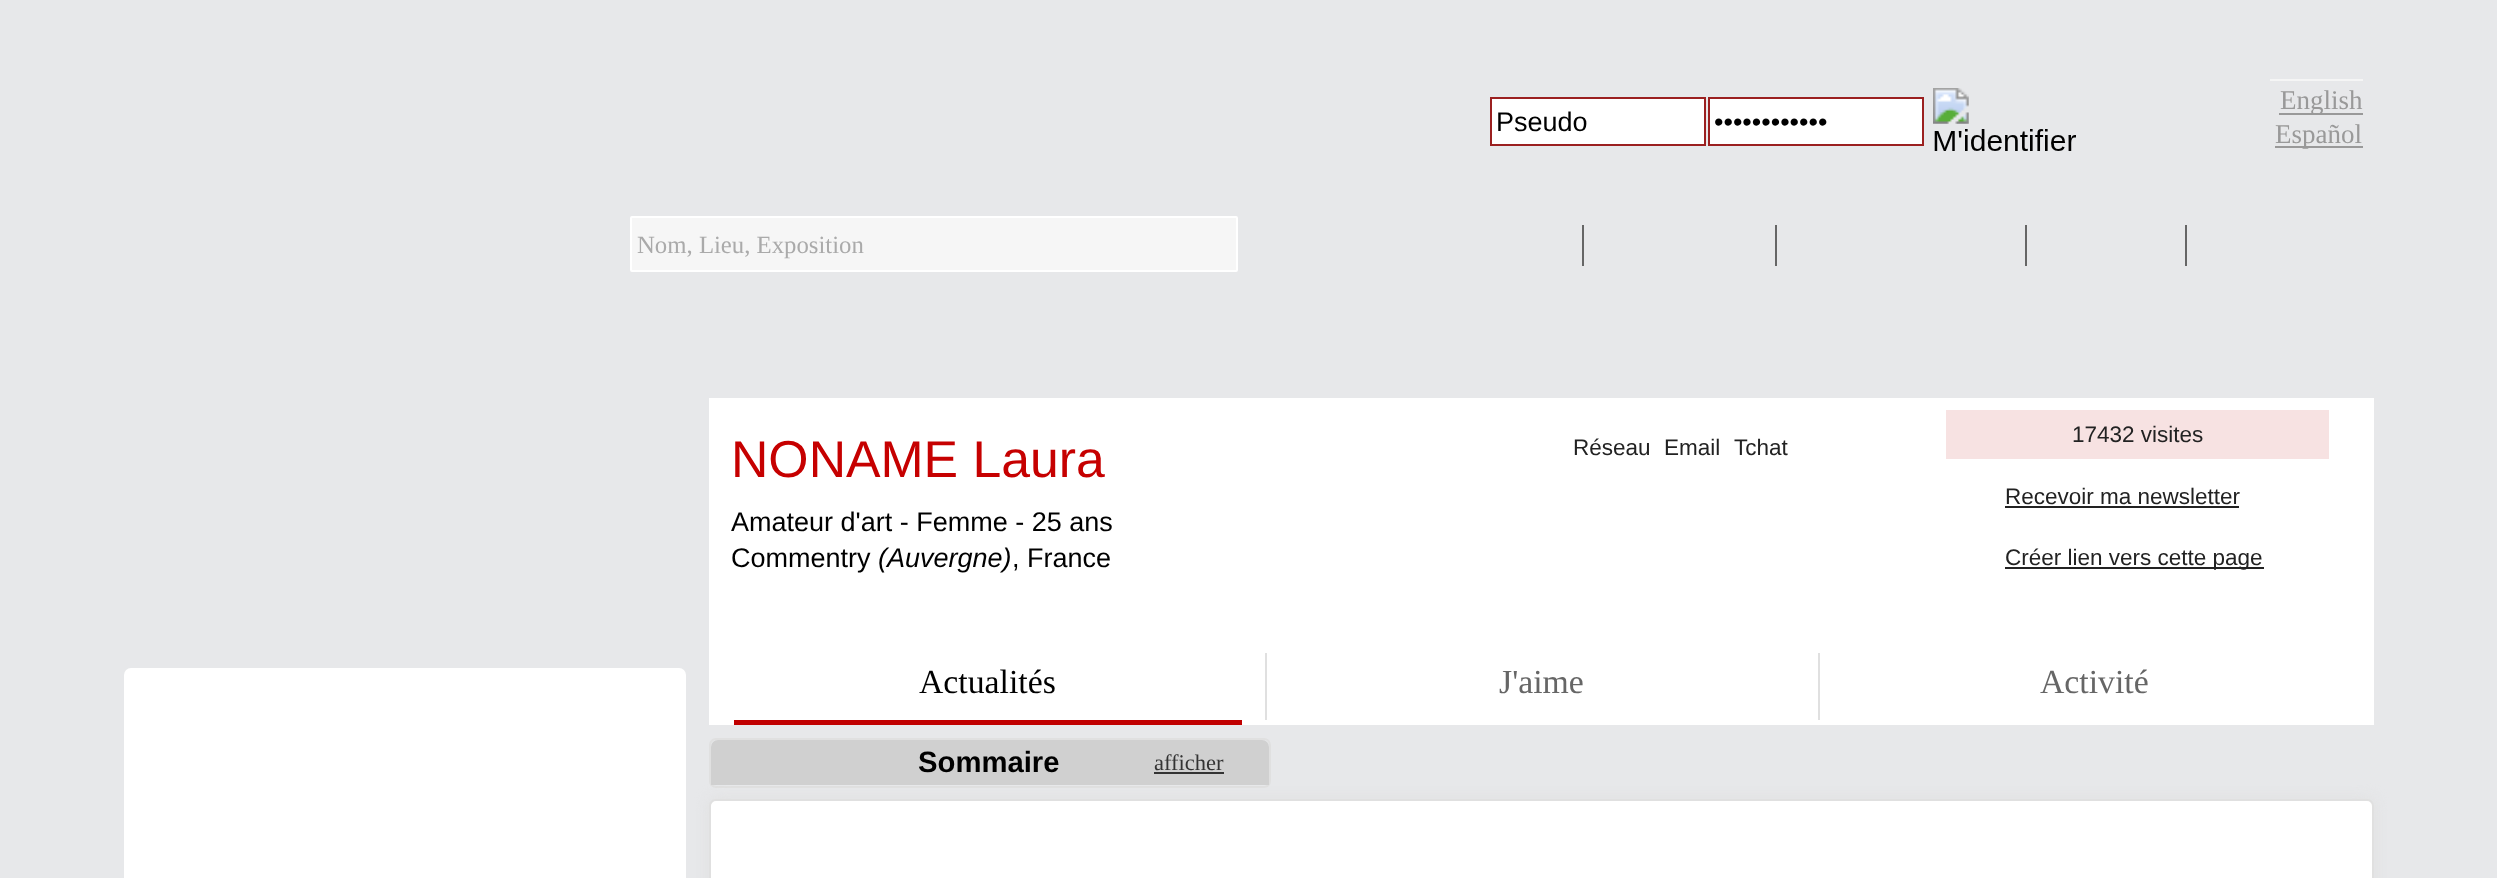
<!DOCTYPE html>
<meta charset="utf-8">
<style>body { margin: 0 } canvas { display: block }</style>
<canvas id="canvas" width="2497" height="878"></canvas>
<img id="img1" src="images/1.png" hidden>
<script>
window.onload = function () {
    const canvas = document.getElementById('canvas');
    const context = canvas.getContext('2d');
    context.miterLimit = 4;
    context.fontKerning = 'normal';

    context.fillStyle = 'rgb(231, 232, 234)';
    context.fillRect(0, 0, 2497, 878);
    context.fillStyle = 'rgb(255, 255, 255)';
    context.beginPath();
    context.rect(1491, 98, 214, 47);
    context.fill();
    context.strokeStyle = 'rgb(155, 32, 32)';
    context.lineWidth = 2;
    context.stroke();
    context.beginPath();
    context.rect(1709, 98, 214, 47);
    context.fill();
    context.stroke();
    context.drawImage(document.getElementById('img1'), 1933, 88, 143, 63);
    context.fillStyle = 'rgb(245, 245, 245)';
    context.fillRect(2270, 79, 93, 2);
    context.fillStyle = 'rgb(153, 153, 153)';
    context.fillRect(2279, 113, 84, 2);
    context.fillRect(2275, 146, 88, 2);
    context.fillStyle = 'rgb(246, 246, 246)';
    context.beginPath();
    context.roundRect(631, 217, 606, 54, 1);
    context.fill();
    context.strokeStyle = 'rgb(255, 255, 255)';
    context.stroke();
    context.fillStyle = 'rgb(102, 102, 102)';
    context.fillRect(1582, 225, 2, 41);
    context.fillRect(1775, 225, 2, 41);
    context.fillRect(2025, 225, 2, 41);
    context.fillRect(2185, 225, 2, 41);
    context.fillStyle = 'rgb(255, 255, 255)';
    context.fillRect(709, 398, 1665, 327);
    context.fillStyle = 'rgb(247, 226, 226)';
    context.fillRect(1946, 410, 383, 49);
    context.fillStyle = 'rgb(34, 34, 34)';
    context.fillRect(2005, 506, 234, 2);
    context.fillRect(2005, 567, 259, 2);
    context.fillStyle = 'rgb(255, 255, 255)';
    context.beginPath();
    context.roundRect(124, 668, 562, 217, 7);
    context.fill();
    context.fillStyle = 'rgb(192, 0, 0)';
    context.fillRect(734, 720, 508, 5);
    context.fillStyle = 'rgb(224, 224, 224)';
    context.fillRect(1265, 653, 2, 67);
    context.fillRect(1818, 653, 2, 67);
    context.beginPath();
    context.roundRect(710, 739, 560, 48, 6);
    context.strokeStyle = 'rgb(224, 224, 224)';
    context.stroke();
    context.fillStyle = 'rgb(208, 208, 208)';
    context.beginPath();
    context.roundRect(711, 740, 558, 45, [7, 7, 0, 0]);
    context.fill();
    context.fillStyle = 'rgb(51, 51, 51)';
    context.fillRect(1154, 772, 70, 2);
    context.fillStyle = 'rgb(224, 224, 224)';
    context.filter = 'blur(7px)';
    context.beginPath();
    context.roundRect(709, 799, 1665, 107, 7);
    context.fill();
    context.filter = 'none';
    context.fillStyle = 'rgb(255, 255, 255)';
    context.beginPath();
    context.roundRect(710, 800, 1663, 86, 6);
    context.fill();
    context.stroke();
    context.font = '27px Liberation Sans';
    context.fillStyle = 'rgb(0, 0, 0)';
    context.fillText('Pseudo', 1496, 131);
    context.fillText('••••••••••••', 1714, 131);
    context.font = '27px Liberation Serif';
    context.fillStyle = 'rgb(153, 153, 153)';
    context.fillText('English', 2280, 109);
    context.fillText('Español', 2275, 143);
    context.font = '24.75px Liberation Serif';
    context.fillStyle = 'rgb(170, 170, 170)';
    context.fillText('Nom, Lieu, Exposition', 637, 253);
    context.font = '51.75px Liberation Sans';
    context.fillStyle = 'rgb(198, 0, 0)';
    context.fillText('NONAME Laura', 731, 477);
    context.font = '22.5px Liberation Sans';
    context.fillStyle = 'rgb(34, 34, 34)';
    context.fillText('Réseau', 1573, 455);
    context.fillText('Email', 1664, 455);
    context.fillText('Tchat', 1734, 455);
    context.fillText('17432 visites', 2072, 442);
    context.fillText('Recevoir ma newsletter', 2005, 504);
    context.fillText('Créer lien vers cette page', 2005, 565);
    context.font = '27px Liberation Sans';
    context.fillStyle = 'rgb(0, 0, 0)';
    context.fillText('Amateur d\'art - Femme - 25 ans', 731, 531);
    context.fillText('Commentry', 731, 567);
    context.font = 'italic 27px Liberation Sans';
    context.fillText('(Auvergne)', 878, 567);
    context.font = '27px Liberation Sans';
    context.fillText(', France', 1012, 567);
    context.font = '33.75px Liberation Serif';
    context.fillText('Actualités', 919, 693);
    context.fillStyle = 'rgb(102, 102, 102)';
    context.fillText('J\'aime', 1499, 693);
    context.fillText('Activité', 2040, 693);
    context.font = 'bold 29.25px Liberation Sans';
    context.fillStyle = 'rgb(0, 0, 0)';
    context.fillText('Sommaire', 918, 772);
    context.font = '22.5px Liberation Serif';
    context.fillStyle = 'rgb(51, 51, 51)';
    context.fillText('afficher', 1154, 770);
};
</script>
